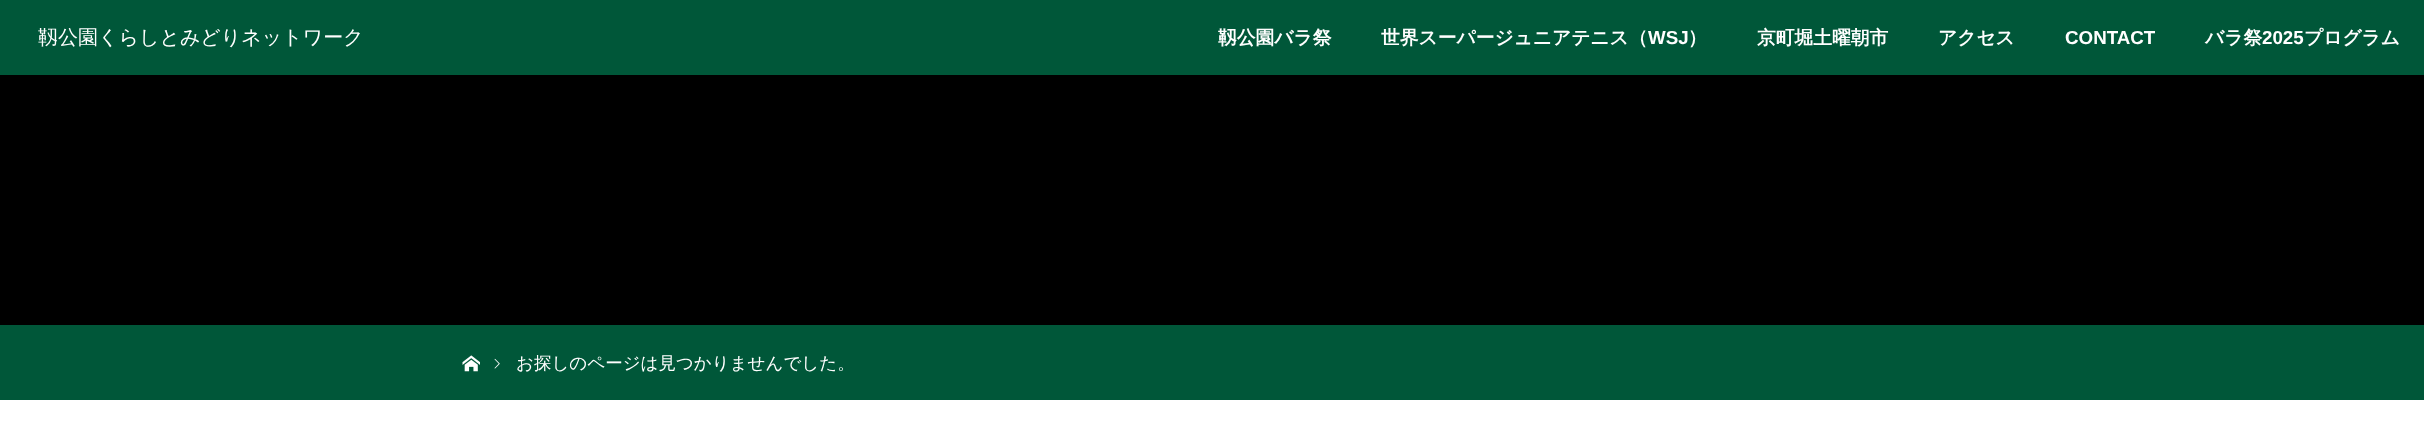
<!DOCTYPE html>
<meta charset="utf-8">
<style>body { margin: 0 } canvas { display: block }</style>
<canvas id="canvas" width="2424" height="441"></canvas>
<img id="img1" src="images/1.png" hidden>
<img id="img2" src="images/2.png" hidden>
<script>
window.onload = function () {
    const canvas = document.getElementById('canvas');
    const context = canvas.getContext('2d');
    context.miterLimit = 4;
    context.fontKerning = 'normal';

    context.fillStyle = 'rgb(255, 255, 255)';
    context.fillRect(0, 0, 2424, 441);
    context.fillStyle = 'rgb(0, 87, 57)';
    context.fillRect(0, 0, 2424, 75);
    context.fillStyle = 'rgb(0, 0, 0)';
    context.fillRect(0, 75, 2424, 250);
    context.fillStyle = 'rgb(0, 87, 57)';
    context.fillRect(0, 325, 2424, 75);
    context.drawImage(document.getElementById('img1'), 462, 355, 18, 17);
    context.drawImage(document.getElementById('img2'), 494, 358, 6, 11);
    context.font = '500 20px WenQuanYi Zen Hei';
    context.fillStyle = 'rgb(255, 255, 255)';
    context.fillText('靱公園くらしとみどりネットワーク', 38, 44);
    context.font = 'bold 18.75px WenQuanYi Zen Hei';
    context.fillText('靱公園バラ祭', 1218, 44);
    context.fillText('世界スーパージュニアテニス（', 1381, 44);
    context.font = 'bold 18.75px Liberation Sans';
    context.fillText('WSJ', 1648, 44);
    context.font = 'bold 18.75px WenQuanYi Zen Hei';
    context.fillText('）', 1688, 44);
    context.fillText('京町堀土曜朝市', 1757, 44);
    context.fillText('アクセス', 1938, 44);
    context.font = 'bold 18.75px Liberation Sans';
    context.fillText('CONTACT', 2065, 44);
    context.font = 'bold 18.75px WenQuanYi Zen Hei';
    context.fillText('バラ祭', 2205, 44);
    context.font = 'bold 18.75px Liberation Sans';
    context.fillText('2025', 2262, 44);
    context.font = 'bold 18.75px WenQuanYi Zen Hei';
    context.fillText('プログラム', 2304, 44);
    context.font = '500 17.5px WenQuanYi Zen Hei';
    context.fillText('お探しのページは見つかりませんでした。', 516, 369);
};
</script>
